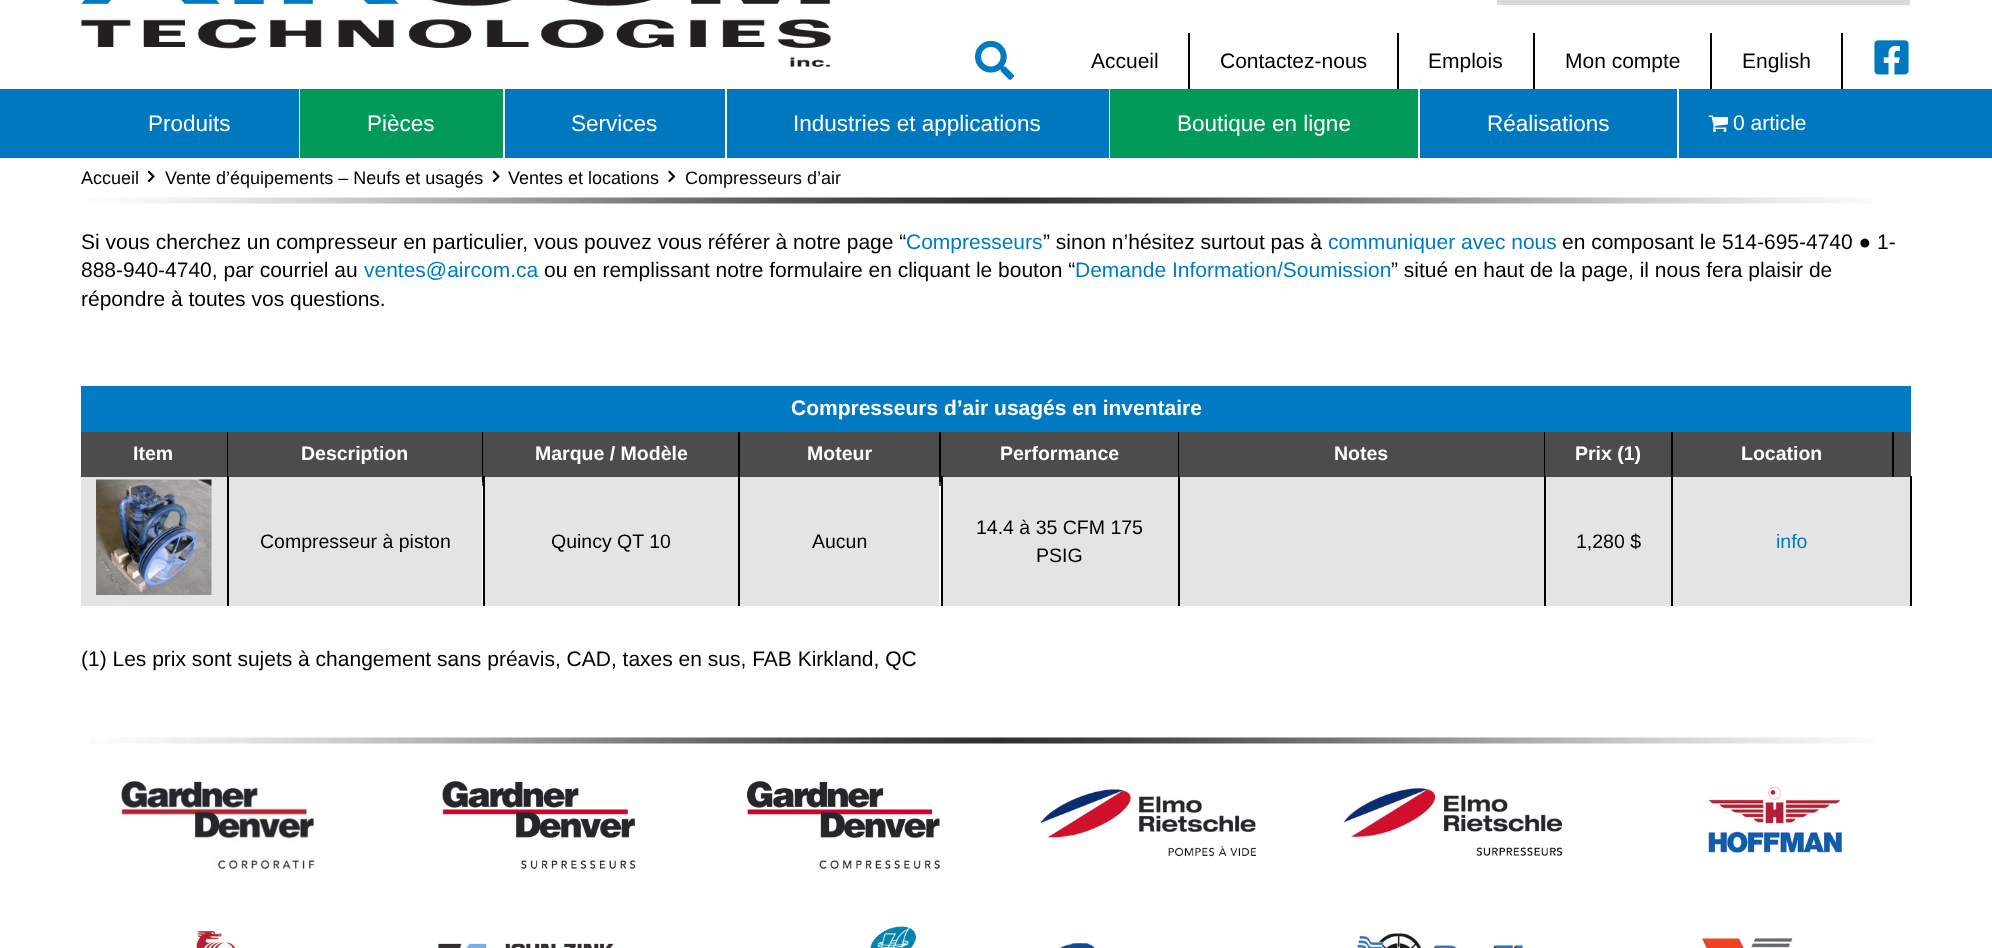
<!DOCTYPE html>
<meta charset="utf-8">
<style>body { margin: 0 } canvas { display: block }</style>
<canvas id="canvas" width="1992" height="948"></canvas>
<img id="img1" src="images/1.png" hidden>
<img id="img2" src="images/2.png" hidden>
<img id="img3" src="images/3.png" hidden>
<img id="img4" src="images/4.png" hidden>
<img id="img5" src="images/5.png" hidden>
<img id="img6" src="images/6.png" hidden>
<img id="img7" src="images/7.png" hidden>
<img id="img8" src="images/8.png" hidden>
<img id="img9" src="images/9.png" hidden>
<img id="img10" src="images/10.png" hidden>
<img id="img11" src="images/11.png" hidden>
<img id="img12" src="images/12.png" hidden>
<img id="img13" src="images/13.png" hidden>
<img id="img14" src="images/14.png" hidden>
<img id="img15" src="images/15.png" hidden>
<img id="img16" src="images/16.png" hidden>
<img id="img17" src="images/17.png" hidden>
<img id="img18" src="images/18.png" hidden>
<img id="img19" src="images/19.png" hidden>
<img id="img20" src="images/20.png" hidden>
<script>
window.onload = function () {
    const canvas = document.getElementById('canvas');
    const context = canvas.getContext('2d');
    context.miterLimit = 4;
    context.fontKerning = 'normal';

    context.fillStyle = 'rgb(255, 255, 255)';
    context.fillRect(0, 0, 1992, 948);
    context.drawImage(document.getElementById('img1'), 81, 0, 750, 67);
    context.fillStyle = 'rgb(217, 217, 217)';
    context.fillRect(1497, 0, 413, 5);
    context.drawImage(document.getElementById('img2'), 975, 40, 39, 40);
    context.fillStyle = 'rgb(0, 0, 0)';
    context.fillRect(1188, 33, 2, 56);
    context.fillRect(1397, 33, 2, 56);
    context.fillRect(1533, 33, 2, 56);
    context.fillRect(1710, 33, 2, 56);
    context.fillRect(1841, 33, 2, 56);
    context.drawImage(document.getElementById('img3'), 1874, 40, 35, 35);
    context.fillStyle = 'rgb(0, 120, 191)';
    context.fillRect(0, 89, 1992, 69);
    context.fillStyle = 'rgb(255, 255, 255)';
    context.fillRect(299, 89, 1, 69);
    context.fillStyle = 'rgb(1, 154, 89)';
    context.fillRect(300, 89, 203, 69);
    context.fillStyle = 'rgb(255, 255, 255)';
    context.fillRect(503, 89, 2, 69);
    context.fillRect(725, 89, 2, 69);
    context.fillRect(1109, 89, 1, 69);
    context.fillStyle = 'rgb(1, 154, 89)';
    context.fillRect(1110, 89, 308, 69);
    context.fillStyle = 'rgb(255, 255, 255)';
    context.fillRect(1418, 89, 2, 69);
    context.fillRect(1677, 89, 2, 69);
    context.drawImage(document.getElementById('img4'), 1708, 115, 20, 17);
    context.drawImage(document.getElementById('img5'), 147, 170, 8, 13);
    context.drawImage(document.getElementById('img5'), 492, 170, 8, 13);
    context.drawImage(document.getElementById('img6'), 668, 170, 8, 13);
    context.drawImage(document.getElementById('img7'), 89, 197, 1784, 7);
    context.fillStyle = 'rgb(0, 122, 195)';
    context.fillRect(81, 386, 1830, 46);
    context.fillStyle = 'rgb(76, 76, 76)';
    context.fillRect(81, 432, 1830, 54);
    context.fillStyle = 'rgb(0, 0, 0)';
    context.fillRect(227, 432, 1, 50);
    context.fillRect(482, 432, 1, 50);
    context.fillRect(738, 432, 2, 174);
    context.fillRect(939, 432, 2, 50);
    context.fillRect(1178, 432, 1, 50);
    context.fillRect(1544, 432, 1, 50);
    context.fillRect(1671, 432, 2, 174);
    context.fillRect(1892, 432, 2, 50);
    context.fillStyle = 'rgb(228, 228, 228)';
    context.fillRect(81, 477, 146, 129);
    context.fillStyle = 'rgb(0, 0, 0)';
    context.fillRect(227, 476, 2, 130);
    context.drawImage(document.getElementById('img8'), 96, 479, 116, 116);
    context.fillStyle = 'rgb(228, 228, 228)';
    context.fillRect(229, 477, 253, 129);
    context.fillStyle = 'rgb(0, 0, 0)';
    context.fillRect(483, 476, 2, 130);
    context.fillStyle = 'rgb(228, 228, 228)';
    context.fillRect(485, 477, 253, 129);
    context.fillRect(740, 477, 199, 129);
    context.fillStyle = 'rgb(0, 0, 0)';
    context.fillRect(941, 476, 2, 130);
    context.fillStyle = 'rgb(228, 228, 228)';
    context.fillRect(943, 477, 235, 129);
    context.fillStyle = 'rgb(0, 0, 0)';
    context.fillRect(1178, 476, 2, 130);
    context.fillStyle = 'rgb(228, 228, 228)';
    context.fillRect(1180, 477, 364, 129);
    context.fillStyle = 'rgb(0, 0, 0)';
    context.fillRect(1544, 476, 2, 130);
    context.fillStyle = 'rgb(228, 228, 228)';
    context.fillRect(1546, 477, 125, 129);
    context.fillRect(1673, 477, 237, 129);
    context.fillStyle = 'rgb(0, 0, 0)';
    context.fillRect(1910, 476, 2, 130);
    context.drawImage(document.getElementById('img7'), 89, 737, 1784, 7);
    context.drawImage(document.getElementById('img9'), 115, 780, 202, 90);
    context.drawImage(document.getElementById('img10'), 196, 929, 40, 19);
    context.drawImage(document.getElementById('img11'), 442, 781, 193, 88);
    context.drawImage(document.getElementById('img12'), 438, 943, 176, 5);
    context.drawImage(document.getElementById('img13'), 747, 781, 193, 88);
    context.drawImage(document.getElementById('img14'), 870, 926, 46, 22);
    context.drawImage(document.getElementById('img15'), 1040, 789, 216, 68);
    context.drawImage(document.getElementById('img16'), 1060, 943, 35, 5);
    context.drawImage(document.getElementById('img17'), 1343, 788, 220, 69);
    context.drawImage(document.getElementById('img18'), 1357, 933, 167, 15);
    context.drawImage(document.getElementById('img19'), 1708, 786, 135, 68);
    context.drawImage(document.getElementById('img20'), 1702, 937, 91, 11);
    context.font = '21px Liberation Sans';
    context.fillText('Accueil', 1091, 68);
    context.fillText('Contactez-nous', 1220, 68);
    context.fillText('Emplois', 1428, 68);
    context.fillText('Mon compte', 1565, 68);
    context.fillText('English', 1742, 68);
    context.font = '22.5px Liberation Sans';
    context.fillStyle = 'rgb(255, 255, 255)';
    context.fillText('Produits', 148, 131);
    context.fillText('Pièces', 367, 131);
    context.fillText('Services', 571, 131);
    context.fillText('Industries et applications', 793, 131);
    context.fillText('Boutique en ligne', 1177, 131);
    context.fillText('Réalisations', 1487, 131);
    context.font = '21px Liberation Sans';
    context.fillText('0 article', 1733, 130);
    context.font = '18px Liberation Sans';
    context.fillStyle = 'rgb(0, 0, 0)';
    context.fillText('Accueil', 81, 184);
    context.fillText('Vente d’équipements – Neufs et usagés', 165, 184);
    context.fillText('Ventes et locations', 508, 184);
    context.fillText('Compresseurs d’air', 685, 184);
    context.font = '21px Liberation Sans';
    context.fillText('Si vous cherchez un compresseur en particulier, vous pouvez vous référer à notre page “', 81, 249);
    context.fillStyle = 'rgb(0, 122, 195)';
    context.fillText('Compresseurs', 906, 249);
    context.fillStyle = 'rgb(0, 0, 0)';
    context.fillText('” sinon n’hésitez surtout pas à', 1043, 249);
    context.fillStyle = 'rgb(0, 122, 195)';
    context.fillText('communiquer avec nous', 1328, 249);
    context.fillStyle = 'rgb(0, 0, 0)';
    context.fillText('en composant le 514-695-4740 ● 1-', 1562, 249);
    context.fillText('888-940-4740, par courriel au', 81, 277);
    context.fillStyle = 'rgb(0, 122, 195)';
    context.fillText('ventes@aircom.ca', 364, 277);
    context.fillStyle = 'rgb(0, 0, 0)';
    context.fillText('ou en remplissant notre formulaire en cliquant le bouton “', 544, 277);
    context.fillStyle = 'rgb(0, 122, 195)';
    context.fillText('Demande Information/Soumission', 1075, 277);
    context.fillStyle = 'rgb(0, 0, 0)';
    context.fillText('” situé en haut de la page, il nous fera plaisir de', 1391, 277);
    context.fillText('répondre à toutes vos questions.', 81, 306);
    context.font = 'bold 21px Liberation Sans';
    context.fillStyle = 'rgb(255, 255, 255)';
    context.fillText('Compresseurs d’air usagés en inventaire', 791, 415);
    context.font = 'bold 19.5px Liberation Sans';
    context.fillText('Item', 133, 460);
    context.fillText('Description', 301, 460);
    context.fillText('Marque / Modèle', 535, 460);
    context.fillText('Moteur', 807, 460);
    context.fillText('Performance', 1000, 460);
    context.fillText('Notes', 1334, 460);
    context.fillText('Prix (1)', 1575, 460);
    context.fillText('Location', 1741, 460);
    context.font = '19.5px Liberation Sans';
    context.fillStyle = 'rgb(0, 0, 0)';
    context.fillText('Compresseur à piston', 260, 548);
    context.fillText('Quincy QT 10', 551, 548);
    context.fillText('Aucun', 812, 548);
    context.fillText('14.4 à 35 CFM 175', 976, 534);
    context.fillText('PSIG', 1036, 562);
    context.fillText('1,280 $', 1576, 548);
    context.fillStyle = 'rgb(0, 122, 195)';
    context.fillText('info', 1776, 548);
    context.font = '21px Liberation Sans';
    context.fillStyle = 'rgb(0, 0, 0)';
    context.fillText('(1) Les prix sont sujets à changement sans préavis, CAD, taxes en sus, FAB Kirkland, QC', 81, 666);
};
</script>
